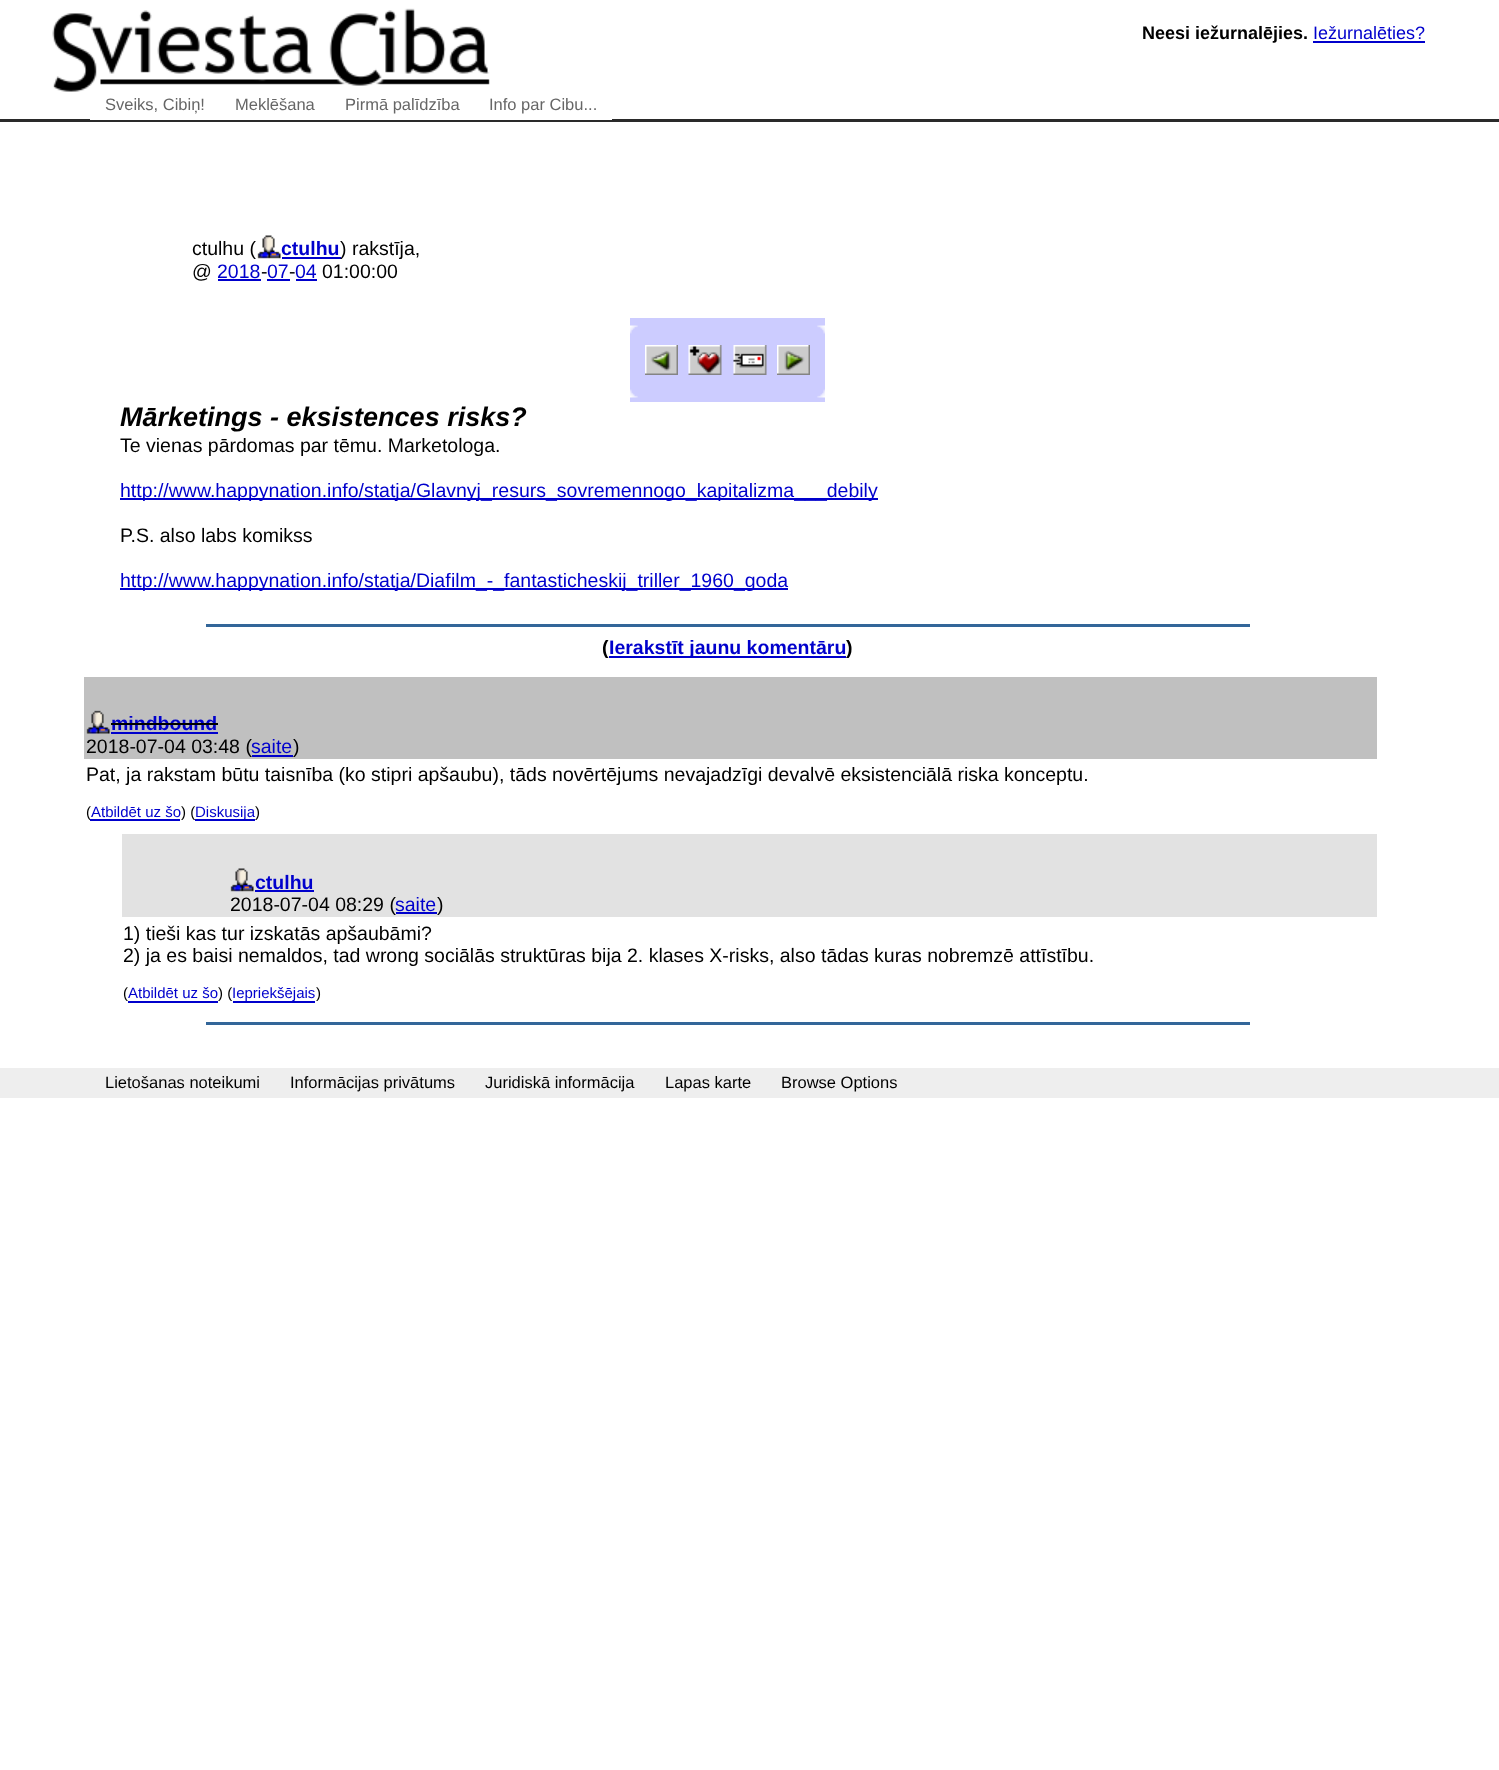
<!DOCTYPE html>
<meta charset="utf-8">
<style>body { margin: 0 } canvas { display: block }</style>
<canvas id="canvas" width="1499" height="1770"></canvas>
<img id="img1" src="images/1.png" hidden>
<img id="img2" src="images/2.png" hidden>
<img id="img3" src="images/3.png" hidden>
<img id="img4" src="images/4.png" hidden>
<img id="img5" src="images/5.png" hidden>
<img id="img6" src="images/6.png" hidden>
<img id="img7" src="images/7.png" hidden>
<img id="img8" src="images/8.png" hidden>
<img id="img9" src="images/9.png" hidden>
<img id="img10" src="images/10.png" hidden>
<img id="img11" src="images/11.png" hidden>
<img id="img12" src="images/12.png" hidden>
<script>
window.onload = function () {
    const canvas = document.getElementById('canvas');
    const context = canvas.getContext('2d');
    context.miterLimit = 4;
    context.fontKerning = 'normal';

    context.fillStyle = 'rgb(255, 255, 255)';
    context.fillRect(0, 0, 1499, 1770);
    context.fillStyle = 'rgb(42, 42, 42)';
    context.fillRect(0, 119, 1499, 3);
    context.drawImage(document.getElementById('img1'), 52, 8, 438, 84);
    context.fillStyle = 'rgb(0, 0, 204)';
    context.fillRect(1313, 41, 112, 2);
    context.fillStyle = 'rgb(255, 255, 255)';
    context.fillRect(90, 119, 522, 1);
    context.drawImage(document.getElementById('img2'), 257, 235, 24, 24);
    context.fillStyle = 'rgb(0, 0, 204)';
    context.fillRect(282, 257, 59, 2);
    context.fillRect(218, 279, 43, 2);
    context.fillRect(267, 279, 23, 2);
    context.fillRect(296, 279, 21, 2);
    context.fillStyle = 'rgb(204, 204, 255)';
    context.fillRect(630, 318, 195, 84);
    context.drawImage(document.getElementById('img3'), 630, 325, 8, 9);
    context.drawImage(document.getElementById('img4'), 817, 325, 8, 9);
    context.drawImage(document.getElementById('img5'), 645, 345, 33, 30);
    context.drawImage(document.getElementById('img6'), 688, 345, 34, 30);
    context.drawImage(document.getElementById('img7'), 733, 345, 34, 30);
    context.drawImage(document.getElementById('img8'), 777, 345, 33, 30);
    context.drawImage(document.getElementById('img9'), 630, 389, 8, 9);
    context.drawImage(document.getElementById('img10'), 817, 389, 8, 9);
    context.fillStyle = 'rgb(0, 0, 204)';
    context.fillRect(120, 498, 758, 2);
    context.fillRect(120, 588, 330, 2);
    context.fillRect(450, 588, 338, 2);
    context.fillStyle = 'rgb(51, 102, 153)';
    context.fillRect(206, 624, 1044, 3);
    context.fillStyle = 'rgb(0, 0, 204)';
    context.fillRect(609, 656, 237, 2);
    context.fillStyle = 'rgb(192, 192, 192)';
    context.fillRect(84, 677, 1293, 82);
    context.drawImage(document.getElementById('img11'), 86, 710, 24, 24);
    context.fillStyle = 'rgb(0, 0, 204)';
    context.fillRect(111, 732, 107, 2);
    context.fillRect(252, 755, 41, 2);
    context.fillRect(195, 819, 60, 2);
    context.fillStyle = 'rgb(226, 226, 226)';
    context.fillRect(122, 834, 1255, 83);
    context.drawImage(document.getElementById('img12'), 230, 868, 24, 24);
    context.fillStyle = 'rgb(0, 0, 204)';
    context.fillRect(255, 890, 59, 2);
    context.fillRect(396, 912, 41, 2);
    context.fillRect(128, 1001, 90, 2);
    context.fillRect(233, 1001, 82, 2);
    context.fillStyle = 'rgb(51, 102, 153)';
    context.fillRect(206, 1022, 1044, 3);
    context.fillStyle = 'rgb(238, 238, 238)';
    context.fillRect(0, 1068, 1499, 30);
    context.font = 'bold 18px Liberation Sans';
    context.fillStyle = 'rgb(0, 0, 0)';
    context.fillText('Neesi iežurnalējies.', 1142, 39);
    context.font = '18px Liberation Sans';
    context.fillStyle = 'rgb(0, 0, 204)';
    context.fillText('Iežurnalēties?', 1313, 39);
    context.font = '16.5px Liberation Sans';
    context.fillStyle = 'rgb(102, 102, 102)';
    context.fillText('Sveiks, Cibiņ!', 105, 110);
    context.fillText('Meklēšana', 235, 110);
    context.fillText('Pirmā palīdzība', 345, 110);
    context.fillText('Info par Cibu...', 489, 110);
    context.font = '19.5px Liberation Sans';
    context.fillStyle = 'rgb(0, 0, 0)';
    context.fillText('ctulhu (', 192, 255);
    context.font = 'bold 19.5px Liberation Sans';
    context.fillStyle = 'rgb(0, 0, 204)';
    context.fillText('ctulhu', 281, 255);
    context.font = '19.5px Liberation Sans';
    context.fillStyle = 'rgb(0, 0, 0)';
    context.fillText(') rakstīja,', 340, 255);
    context.fillText('@', 192, 278);
    context.fillStyle = 'rgb(0, 0, 204)';
    context.fillText('2018', 217, 278);
    context.fillStyle = 'rgb(0, 0, 0)';
    context.fillText('-', 261, 278);
    context.fillStyle = 'rgb(0, 0, 204)';
    context.fillText('07', 267, 278);
    context.fillStyle = 'rgb(0, 0, 0)';
    context.fillText('-', 289, 278);
    context.fillStyle = 'rgb(0, 0, 204)';
    context.fillText('04', 295, 278);
    context.fillStyle = 'rgb(0, 0, 0)';
    context.fillText('01:00:00', 322, 278);
    context.font = 'italic bold 27px Liberation Sans';
    context.fillText('Mārketings - eksistences risks?', 120, 426);
    context.font = '19.5px Liberation Sans';
    context.fillText('Te vienas pārdomas par tēmu. Marketologa.', 120, 452);
    context.fillStyle = 'rgb(0, 0, 204)';
    context.fillText('http://www.happynation.info/statja/Glavnyj_resurs_sovremennogo_kapitalizma___debily', 120, 497);
    context.fillStyle = 'rgb(0, 0, 0)';
    context.fillText('P.S. also labs komikss', 120, 542);
    context.fillStyle = 'rgb(0, 0, 204)';
    context.fillText('http://www.happynation.info/statja/Diaf', 120, 587);
    context.fillText('ilm_-_fantasticheskij_triller_1960_goda', 451, 587);
    context.font = 'bold 19.5px Liberation Sans';
    context.fillStyle = 'rgb(0, 0, 0)';
    context.fillText('(', 602, 654);
    context.fillStyle = 'rgb(0, 0, 204)';
    context.fillText('Ierakstīt jaunu komentāru', 609, 654);
    context.fillStyle = 'rgb(0, 0, 0)';
    context.fillText(')', 846, 654);
    context.fillStyle = 'rgb(0, 0, 204)';
    context.fillText('mindbound', 111, 730);
    context.fillStyle = 'rgb(0, 0, 0)';
    context.fillRect(111, 723, 107, 2);
    context.font = '19.5px Liberation Sans';
    context.fillText('2018-07-04 03:48 (', 86, 753);
    context.fillStyle = 'rgb(0, 0, 204)';
    context.fillText('saite', 251, 753);
    context.fillStyle = 'rgb(0, 0, 0)';
    context.fillText(')', 293, 753);
    context.fillText('Pat, ja rakstam būtu taisnība (ko stipri apšaubu), tāds novērtējums nevajadzīgi devalvē eksistenciālā riska konceptu.', 86, 781);
    context.font = '15px Liberation Sans';
    context.fillText('(', 86, 817);
    context.fillStyle = 'rgb(0, 0, 204)';
    context.fillRect(90, 819, 90, 2);
    context.fillText('Atbildēt uz šo', 91, 817);
    context.fillStyle = 'rgb(0, 0, 0)';
    context.fillText(') (', 181, 817);
    context.fillStyle = 'rgb(0, 0, 204)';
    context.fillText('Diskusija', 195, 817);
    context.fillStyle = 'rgb(0, 0, 0)';
    context.fillText(')', 255, 817);
    context.font = 'bold 19.5px Liberation Sans';
    context.fillStyle = 'rgb(0, 0, 204)';
    context.fillText('ctulhu', 255, 889);
    context.font = '19.5px Liberation Sans';
    context.fillStyle = 'rgb(0, 0, 0)';
    context.fillText('2018-07-04 08:29 (', 230, 911);
    context.fillStyle = 'rgb(0, 0, 204)';
    context.fillText('saite', 395, 911);
    context.fillStyle = 'rgb(0, 0, 0)';
    context.fillText(')', 437, 911);
    context.fillText('1) tieši kas tur izskatās apšaubāmi?', 123, 940);
    context.fillText('2) ja es baisi nemaldos, tad wrong sociālās struktūras bija 2. klases X-risks, also tādas kuras nobremzē attīstību.', 123, 962);
    context.font = '15px Liberation Sans';
    context.fillText('(', 123, 998);
    context.fillStyle = 'rgb(0, 0, 204)';
    context.fillText('Atbildēt uz šo', 128, 998);
    context.fillStyle = 'rgb(0, 0, 0)';
    context.fillText(') (', 218, 998);
    context.fillStyle = 'rgb(0, 0, 204)';
    context.fillText('Iepriekšējais', 232, 998);
    context.fillStyle = 'rgb(0, 0, 0)';
    context.fillText(')', 316, 998);
    context.font = '16.5px Liberation Sans';
    context.fillText('Lietošanas noteikumi', 105, 1088);
    context.fillText('Informācijas privātums', 290, 1088);
    context.fillText('Juridiskā informācija', 485, 1088);
    context.fillText('Lapas karte', 665, 1088);
    context.fillText('Browse Options', 781, 1088);
};
</script>
